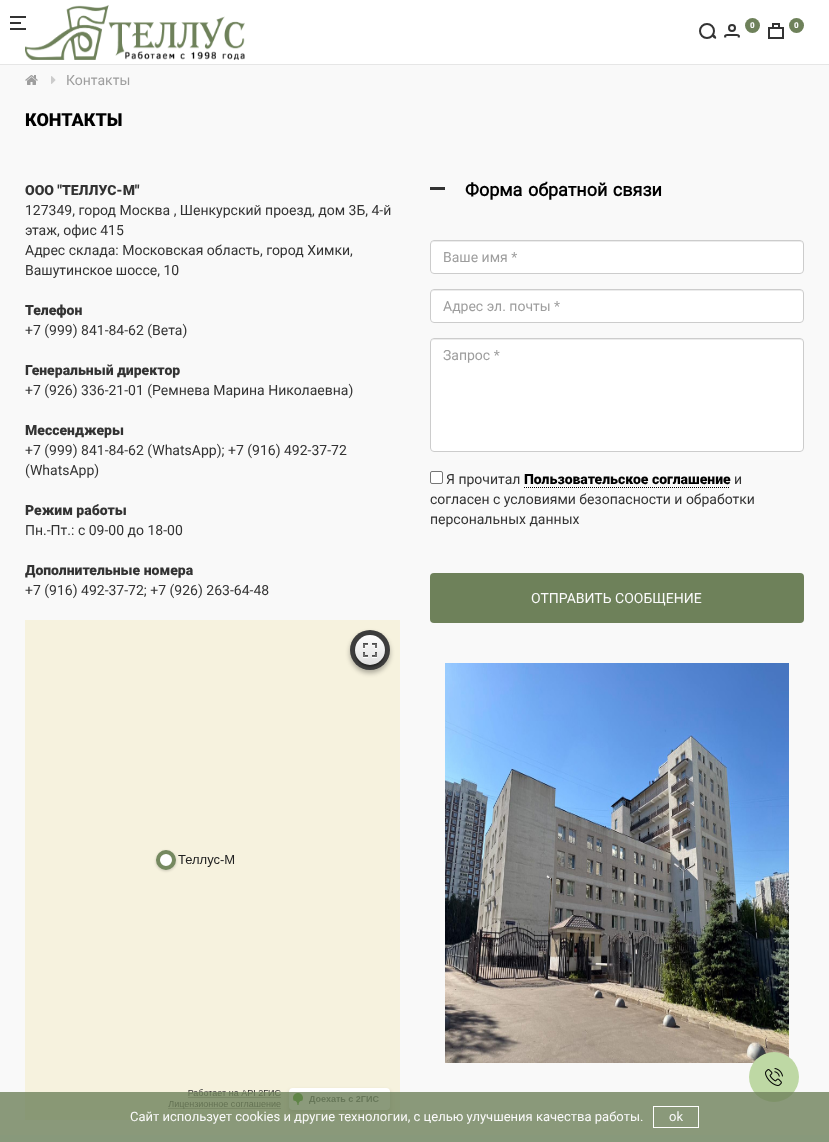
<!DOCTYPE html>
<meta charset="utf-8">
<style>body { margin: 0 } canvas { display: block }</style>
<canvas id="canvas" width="829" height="1142"></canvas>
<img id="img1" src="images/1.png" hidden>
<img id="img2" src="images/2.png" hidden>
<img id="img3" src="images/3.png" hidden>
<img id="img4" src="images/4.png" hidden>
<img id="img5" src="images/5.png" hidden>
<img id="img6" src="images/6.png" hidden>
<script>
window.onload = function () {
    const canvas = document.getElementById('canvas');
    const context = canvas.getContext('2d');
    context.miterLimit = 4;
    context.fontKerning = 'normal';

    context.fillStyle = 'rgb(249, 249, 249)';
    context.fillRect(0, 0, 829, 1142);
    context.fillStyle = 'rgb(255, 255, 255)';
    context.fillRect(0, 0, 829, 64);
    context.fillStyle = 'rgb(230, 230, 230)';
    context.fillRect(0, 64, 829, 1);
    context.drawImage(document.getElementById('img1'), 25, 5, 220, 55);
    context.fillStyle = 'rgb(51, 51, 51)';
    context.fillRect(10, 16, 16, 2);
    context.fillRect(10, 22, 11, 2);
    context.fillRect(10, 28, 16, 2);
    context.beginPath();
    context.arc(707, 31, 7, 0, 2 * Math.PI);
    context.strokeStyle = 'rgb(51, 51, 51)';
    context.lineWidth = 2;
    context.stroke();
    context.beginPath();
    context.moveTo(716, 38.5);
    context.bezierCurveTo(714.5, 39.5, 711, 36, 712.5, 34.5);
    context.bezierCurveTo(713.5, 33.5, 717, 37, 716, 38.5);
    context.closePath();
    context.fill();
    context.beginPath();
    context.arc(732, 28, 3, 0, 2 * Math.PI);
    context.stroke();
    context.beginPath();
    context.moveTo(725.5, 37.5);
    context.lineTo(725, 36);
    context.bezierCurveTo(725.5, 34.5, 727, 35, 728.5, 35);
    context.lineTo(735.5, 35);
    context.bezierCurveTo(737, 35, 738.5, 34.5, 739, 36);
    context.lineTo(738.5, 37.5);
    context.stroke();
    context.fillStyle = 'rgb(110, 129, 90)';
    context.beginPath();
    context.arc(752.5, 25.5, 7.5, 0, 2 * Math.PI);
    context.fill();
    context.fillStyle = 'rgb(51, 51, 51)';
    context.fillRect(772, 23, 8, 2);
    context.fillRect(778, 23, 2, 6);
    context.fillRect(772, 23, 2, 6);
    context.strokeRect(769, 28, 14, 10);
    context.fillStyle = 'rgb(110, 129, 90)';
    context.beginPath();
    context.arc(796.5, 25.5, 7.5, 0, 2 * Math.PI);
    context.fill();
    context.drawImage(document.getElementById('img2'), 25, 75, 13, 10);
    context.drawImage(document.getElementById('img3'), 51, 76, 5, 8);
    context.drawImage(document.getElementById('img4'), 25, 620, 375, 500);
    context.fillStyle = 'rgb(51, 51, 51)';
    context.fillRect(430, 187, 15, 3);
    context.fillStyle = 'rgb(255, 255, 255)';
    context.beginPath();
    context.roundRect(430, 240, 374, 34, 4);
    context.fill();
    context.fillStyle = 'rgb(236, 236, 236)';
    context.beginPath();
    context.moveTo(434, 242);
    context.lineTo(800, 242);
    context.bezierCurveTo(802, 242, 803, 243, 803, 245);
    context.bezierCurveTo(803, 243, 802, 241, 800, 241);
    context.lineTo(434, 241);
    context.lineTo(432, 242);
    context.lineTo(431, 245);
    context.bezierCurveTo(431, 243, 432, 242, 434, 242);
    context.closePath();
    context.fill();
    context.beginPath();
    context.roundRect(430.5, 240.5, 373, 33, 3.5);
    context.strokeStyle = 'rgb(204, 204, 204)';
    context.lineWidth = 1;
    context.stroke();
    context.fillStyle = 'rgb(255, 255, 255)';
    context.beginPath();
    context.roundRect(430, 289, 374, 34, 4);
    context.fill();
    context.fillStyle = 'rgb(236, 236, 236)';
    context.beginPath();
    context.moveTo(434, 291);
    context.lineTo(800, 291);
    context.bezierCurveTo(802, 291, 803, 292, 803, 294);
    context.bezierCurveTo(803, 292, 802, 290, 800, 290);
    context.lineTo(434, 290);
    context.lineTo(432, 291);
    context.lineTo(431, 294);
    context.bezierCurveTo(431, 292, 432, 291, 434, 291);
    context.closePath();
    context.fill();
    context.beginPath();
    context.roundRect(430.5, 289.5, 373, 33, 3.5);
    context.stroke();
    context.fillStyle = 'rgb(255, 255, 255)';
    context.beginPath();
    context.roundRect(430, 338, 374, 114, 4);
    context.fill();
    context.fillStyle = 'rgb(236, 236, 236)';
    context.beginPath();
    context.moveTo(434, 340);
    context.lineTo(800, 340);
    context.bezierCurveTo(802, 340, 803, 341, 803, 343);
    context.bezierCurveTo(803, 341, 802, 339, 800, 339);
    context.lineTo(434, 339);
    context.lineTo(432, 340);
    context.lineTo(431, 343);
    context.bezierCurveTo(431, 341, 432, 340, 434, 340);
    context.closePath();
    context.fill();
    context.beginPath();
    context.roundRect(430.5, 338.5, 373, 113, 3.5);
    context.stroke();
    context.fillStyle = 'rgb(255, 255, 255)';
    context.beginPath();
    context.roundRect(430.5, 471.5, 12, 12, 1.5);
    context.fill();
    context.strokeStyle = 'rgb(118, 118, 118)';
    context.stroke();
    context.beginPath();
    context.moveTo(524, 487.5);
    context.lineTo(730, 487.5);
    context.strokeStyle = 'rgb(0, 0, 0)';
    context.setLineDash([1, 1]);
    context.stroke();
    context.fillStyle = 'rgb(110, 129, 90)';
    context.beginPath();
    context.roundRect(430, 573, 374, 50, 4);
    context.fill();
    context.drawImage(document.getElementById('img5'), 445, 663, 344, 400);
    context.fillStyle = 'rgb(190, 216, 164)';
    context.beginPath();
    context.arc(774, 1077, 25, 0, 2 * Math.PI);
    context.fill();
    context.drawImage(document.getElementById('img6'), 765, 1068, 18, 18);
    context.fillStyle = 'rgb(241, 249, 252)';
    context.fillRect(0, 1135, 829, 7);
    context.fillStyle = 'rgba(110, 129, 90, 0.8)';
    context.fillRect(0, 1092, 829, 50);
    context.strokeStyle = 'rgb(255, 255, 255)';
    context.setLineDash([]);
    context.strokeRect(653.5, 1106.5, 45, 21);
    context.font = '900 8px Roboto';
    context.fillStyle = 'rgb(250, 250, 250)';
    context.fillText('0', 750, 28);
    context.fillText('0', 794, 28);
    context.font = '14px Roboto';
    context.fillStyle = 'rgb(158, 158, 158)';
    context.fillText('Контакты', 66, 85);
    context.font = '900 18px Roboto';
    context.fillStyle = 'rgb(0, 0, 0)';
    context.fillText('КОНТАКТЫ', 25, 126);
    context.font = '900 14px Roboto';
    context.fillStyle = 'rgb(51, 51, 51)';
    context.fillText('ООО "ТЕЛЛУС-М"', 25, 195);
    context.font = '14px Roboto';
    context.fillText('127349, город Москва , Шенкурский проезд, дом 3Б, 4-й', 25, 215);
    context.fillText('этаж, офис 415', 25, 235);
    context.fillText('Адрес склада: Московская область, город Химки,', 25, 255);
    context.fillText('Вашутинское шоссе, 10', 25, 275);
    context.font = '900 14px Roboto';
    context.fillText('Телефон', 25, 315);
    context.font = '14px Roboto';
    context.fillText('+7 (999) 841-84-62 (Вета)', 25, 335);
    context.font = '900 14px Roboto';
    context.fillText('Генеральный директор', 25, 375);
    context.font = '14px Roboto';
    context.fillText('+7 (926) 336-21-01 (Ремнева Марина Николаевна)', 25, 395);
    context.font = '900 14px Roboto';
    context.fillText('Мессенджеры', 25, 435);
    context.font = '14px Roboto';
    context.fillText('+7 (999) 841-84-62 (WhatsApp); +7 (916) 492-37-72', 25, 455);
    context.fillText('(WhatsApp)', 25, 475);
    context.font = '900 14px Roboto';
    context.fillText('Режим работы', 25, 515);
    context.font = '14px Roboto';
    context.fillText('Пн.-Пт.: с 09-00 до 18-00', 25, 535);
    context.font = '900 14px Roboto';
    context.fillText('Дополнительные номера', 25, 575);
    context.font = '14px Roboto';
    context.fillText('+7 (916) 492-37-72; +7 (926) 263-64-48', 25, 595);
    context.wordSpacing = '1px';
    context.font = 'bold 18px Roboto';
    context.fillStyle = 'rgb(0, 0, 0)';
    context.fillText('Форма обратной связи', 465, 196);
    context.wordSpacing = '0px';
    context.font = '14px Roboto';
    context.fillStyle = 'rgb(158, 158, 158)';
    context.fillText('Ваше имя *', 443, 262);
    context.fillText('Адрес эл. почты *', 443, 311);
    context.fillText('Запрос *', 443, 360);
    context.fillStyle = 'rgb(51, 51, 51)';
    context.fillText('Я прочитал', 446, 484);
    context.font = '900 14px Roboto';
    context.fillStyle = 'rgb(0, 0, 0)';
    context.fillText('Пользовательское соглашение', 524, 484);
    context.font = '14px Roboto';
    context.fillStyle = 'rgb(51, 51, 51)';
    context.fillText('и', 734, 484);
    context.fillText('согласен с условиями безопасности и обработки', 430, 504);
    context.fillText('персональных данных', 430, 524);
    context.fillStyle = 'rgb(250, 250, 250)';
    context.fillText('ОТПРАВИТЬ СООБЩЕНИЕ', 531, 603);
    context.font = '13px Roboto';
    context.fillText('Сайт использует cookies и другие технологии, с целью улучшения качества работы.', 130, 1121);
    context.fillText('ok', 669, 1121);
};
</script>
